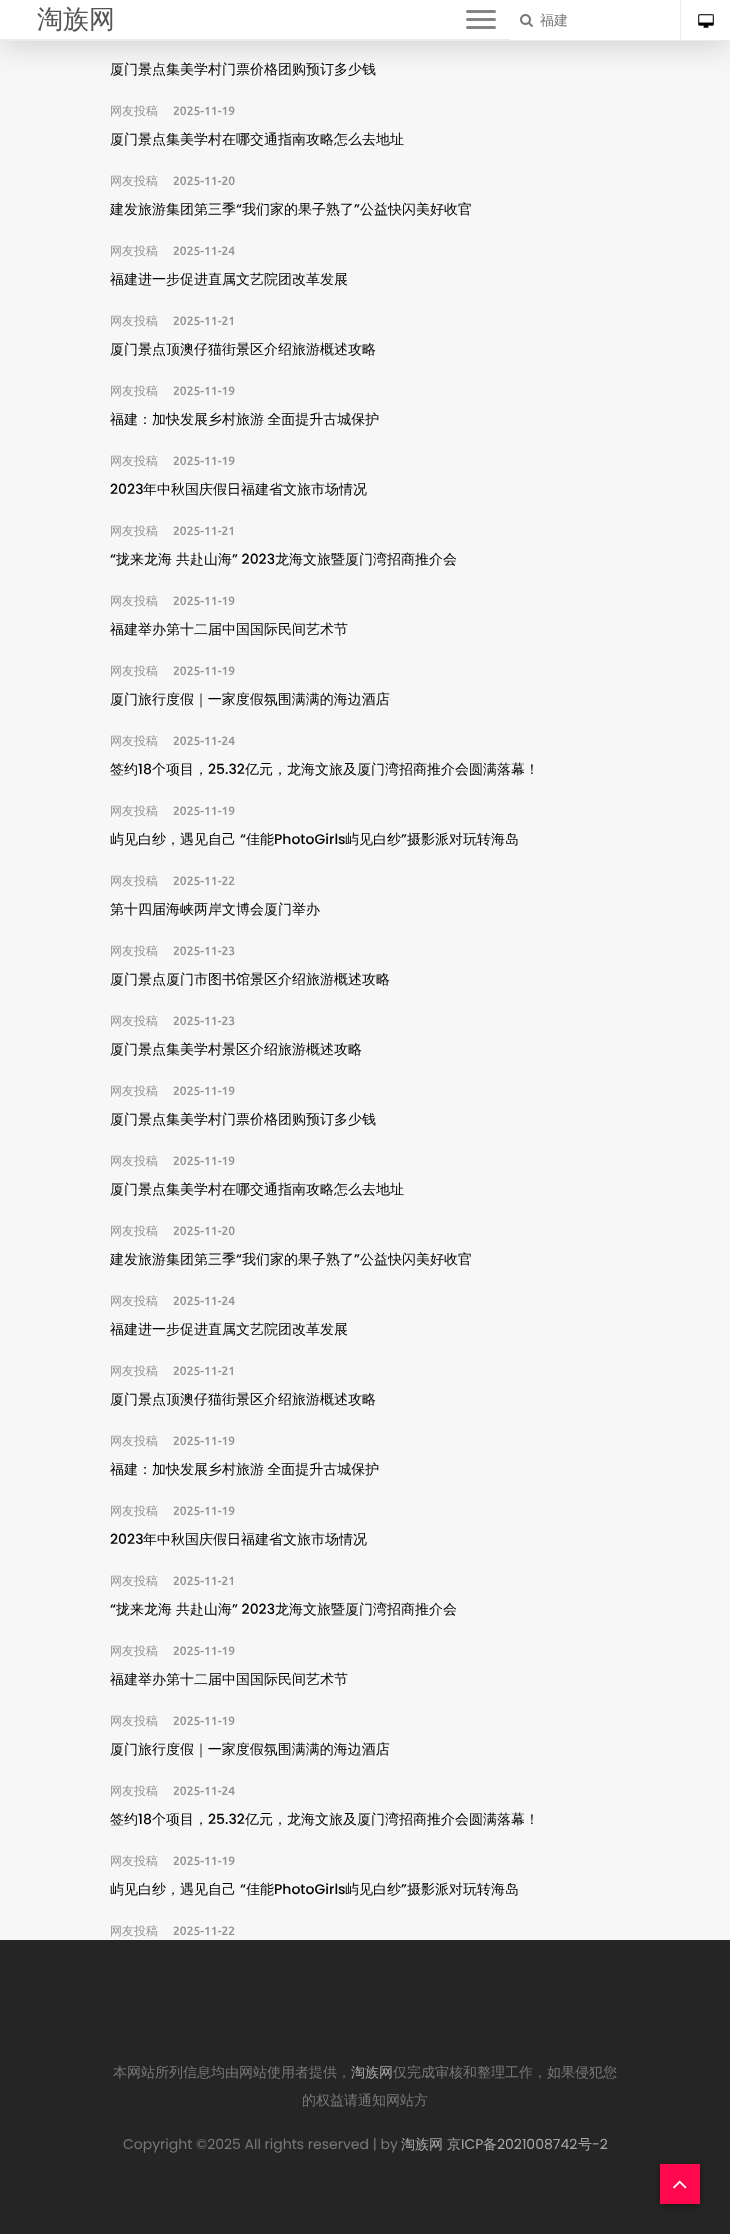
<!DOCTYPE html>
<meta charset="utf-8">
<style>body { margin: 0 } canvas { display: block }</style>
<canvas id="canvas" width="730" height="2234"></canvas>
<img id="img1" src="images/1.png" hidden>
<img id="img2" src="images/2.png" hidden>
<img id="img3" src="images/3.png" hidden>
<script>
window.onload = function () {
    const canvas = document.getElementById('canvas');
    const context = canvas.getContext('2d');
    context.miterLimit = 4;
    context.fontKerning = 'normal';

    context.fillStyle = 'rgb(247, 247, 247)';
    context.fillRect(0, 0, 730, 2234);
    context.fillStyle = 'rgba(0, 0, 0, 0.15)';
    context.filter = 'blur(15px)';
    context.beginPath();
    context.rect(0, 5, 730, 41);
    context.fill();
    context.filter = 'none';
    context.fillStyle = 'rgb(235, 235, 235)';
    context.fillRect(0, 40, 730, 1);
    context.fillStyle = 'rgb(255, 255, 255)';
    context.fillRect(0, 0, 730, 40);
    context.fillStyle = 'rgb(235, 235, 235)';
    context.fillRect(0, 39, 511, 1);
    context.fillStyle = 'rgb(133, 133, 133)';
    context.beginPath();
    context.roundRect(466, 10, 30, 3, 1.5);
    context.fill();
    context.beginPath();
    context.roundRect(466, 18, 30, 3, 1.5);
    context.fill();
    context.beginPath();
    context.roundRect(466, 26, 30, 3, 1.5);
    context.fill();
    context.drawImage(document.getElementById('img1'), 520, 14, 13, 13);
    context.fillStyle = 'rgb(255, 255, 255)';
    context.fillRect(510, 39, 1, 1);
    context.fillStyle = 'rgb(235, 235, 235)';
    context.fillRect(680, 0, 1, 40);
    context.drawImage(document.getElementById('img2'), 698, 14, 16, 14);
    context.fillStyle = 'rgb(37, 37, 37)';
    context.fillRect(0, 1940, 730, 294);
    context.fillStyle = 'rgba(0, 0, 0, 0.3)';
    context.filter = 'blur(3px)';
    context.beginPath();
    context.rect(660, 2166, 40, 40);
    context.fill();
    context.filter = 'none';
    context.fillStyle = 'rgb(255, 8, 78)';
    context.fillRect(660, 2164, 40, 40);
    context.drawImage(document.getElementById('img3'), 673, 2180, 14, 9);
    context.font = '500 26px WenQuanYi Zen Hei';
    context.fillStyle = 'rgb(86, 86, 86)';
    context.fillText('淘族网', 37, 28);
    context.font = '500 14px WenQuanYi Zen Hei';
    context.fillStyle = 'rgb(120, 120, 120)';
    context.fillText('福建', 540, 25);
    context.fillStyle = 'rgb(0, 0, 0)';
    context.fillText('厦门景点集美学村门票价格团购预订多少钱', 110, 74);
    context.font = '500 12px WenQuanYi Zen Hei';
    context.fillStyle = 'rgb(148, 148, 148)';
    context.fillText('网友投稿', 110, 115);
    context.font = '500 12px Ubuntu';
    context.fillText('2025-11-19', 173, 115);
    context.font = '500 14px WenQuanYi Zen Hei';
    context.fillStyle = 'rgb(0, 0, 0)';
    context.fillText('厦门景点集美学村在哪交通指南攻略怎么去地址', 110, 144);
    context.font = '500 12px WenQuanYi Zen Hei';
    context.fillStyle = 'rgb(148, 148, 148)';
    context.fillText('网友投稿', 110, 185);
    context.font = '500 12px Ubuntu';
    context.fillText('2025-11-20', 173, 185);
    context.font = '500 14px WenQuanYi Zen Hei';
    context.fillStyle = 'rgb(0, 0, 0)';
    context.fillText('建发旅游集团第三季', 110, 214);
    context.font = '500 14px Poppins';
    context.fillText('“', 236, 214);
    context.font = '500 14px WenQuanYi Zen Hei';
    context.fillText('我们家的果子熟了', 242, 214);
    context.font = '500 14px Poppins';
    context.fillText('”', 354, 214);
    context.font = '500 14px WenQuanYi Zen Hei';
    context.fillText('公益快闪美好收官', 360, 214);
    context.font = '500 12px WenQuanYi Zen Hei';
    context.fillStyle = 'rgb(148, 148, 148)';
    context.fillText('网友投稿', 110, 255);
    context.font = '500 12px Ubuntu';
    context.fillText('2025-11-24', 173, 255);
    context.font = '500 14px WenQuanYi Zen Hei';
    context.fillStyle = 'rgb(0, 0, 0)';
    context.fillText('福建进一步促进直属文艺院团改革发展', 110, 284);
    context.font = '500 12px WenQuanYi Zen Hei';
    context.fillStyle = 'rgb(148, 148, 148)';
    context.fillText('网友投稿', 110, 325);
    context.font = '500 12px Ubuntu';
    context.fillText('2025-11-21', 173, 325);
    context.font = '500 14px WenQuanYi Zen Hei';
    context.fillStyle = 'rgb(0, 0, 0)';
    context.fillText('厦门景点顶澳仔猫街景区介绍旅游概述攻略', 110, 354);
    context.font = '500 12px WenQuanYi Zen Hei';
    context.fillStyle = 'rgb(148, 148, 148)';
    context.fillText('网友投稿', 110, 395);
    context.font = '500 12px Ubuntu';
    context.fillText('2025-11-19', 173, 395);
    context.wordSpacing = '-1px';
    context.font = '500 14px WenQuanYi Zen Hei';
    context.fillStyle = 'rgb(0, 0, 0)';
    context.fillText('福建：加快发展乡村旅游 全面提升古城保护', 110, 424);
    context.wordSpacing = '0px';
    context.font = '500 12px WenQuanYi Zen Hei';
    context.fillStyle = 'rgb(148, 148, 148)';
    context.fillText('网友投稿', 110, 465);
    context.font = '500 12px Ubuntu';
    context.fillText('2025-11-19', 173, 465);
    context.font = '500 14px Poppins';
    context.fillStyle = 'rgb(0, 0, 0)';
    context.fillText('2023', 110, 494);
    context.font = '500 14px WenQuanYi Zen Hei';
    context.fillText('年中秋国庆假日福建省文旅市场情况', 143, 494);
    context.font = '500 12px WenQuanYi Zen Hei';
    context.fillStyle = 'rgb(148, 148, 148)';
    context.fillText('网友投稿', 110, 535);
    context.font = '500 12px Ubuntu';
    context.fillText('2025-11-21', 173, 535);
    context.font = '500 14px Poppins';
    context.fillStyle = 'rgb(0, 0, 0)';
    context.fillText('“', 110, 564);
    context.font = '500 14px WenQuanYi Zen Hei';
    context.fillText('拢来龙海', 116, 564);
    context.fillText('共赴山海', 176, 564);
    context.font = '500 14px Poppins';
    context.fillText('” 2023', 232, 564);
    context.font = '500 14px WenQuanYi Zen Hei';
    context.fillText('龙海文旅暨厦门湾招商推介会', 275, 564);
    context.font = '500 12px WenQuanYi Zen Hei';
    context.fillStyle = 'rgb(148, 148, 148)';
    context.fillText('网友投稿', 110, 605);
    context.font = '500 12px Ubuntu';
    context.fillText('2025-11-19', 173, 605);
    context.font = '500 14px WenQuanYi Zen Hei';
    context.fillStyle = 'rgb(0, 0, 0)';
    context.fillText('福建举办第十二届中国国际民间艺术节', 110, 634);
    context.font = '500 12px WenQuanYi Zen Hei';
    context.fillStyle = 'rgb(148, 148, 148)';
    context.fillText('网友投稿', 110, 675);
    context.font = '500 12px Ubuntu';
    context.fillText('2025-11-19', 173, 675);
    context.font = '500 14px WenQuanYi Zen Hei';
    context.fillStyle = 'rgb(0, 0, 0)';
    context.fillText('厦门旅行度假｜一家度假氛围满满的海边酒店', 110, 704);
    context.font = '500 12px WenQuanYi Zen Hei';
    context.fillStyle = 'rgb(148, 148, 148)';
    context.fillText('网友投稿', 110, 745);
    context.font = '500 12px Ubuntu';
    context.fillText('2025-11-24', 173, 745);
    context.font = '500 14px WenQuanYi Zen Hei';
    context.fillStyle = 'rgb(0, 0, 0)';
    context.fillText('签约', 110, 774);
    context.font = '500 14px Poppins';
    context.fillText('18', 138, 774);
    context.font = '500 14px WenQuanYi Zen Hei';
    context.fillText('个项目，', 152, 774);
    context.font = '500 14px Poppins';
    context.fillText('25.32', 208, 774);
    context.font = '500 14px WenQuanYi Zen Hei';
    context.fillText('亿元，龙海文旅及厦门湾招商推介会圆满落幕！', 245, 774);
    context.font = '500 12px WenQuanYi Zen Hei';
    context.fillStyle = 'rgb(148, 148, 148)';
    context.fillText('网友投稿', 110, 815);
    context.font = '500 12px Ubuntu';
    context.fillText('2025-11-19', 173, 815);
    context.font = '500 14px WenQuanYi Zen Hei';
    context.fillStyle = 'rgb(0, 0, 0)';
    context.fillText('屿见白纱，遇见自己', 110, 844);
    context.font = '500 14px Poppins';
    context.fillText('“', 240, 844);
    context.font = '500 14px WenQuanYi Zen Hei';
    context.fillText('佳能', 246, 844);
    context.font = '500 14px Poppins';
    context.fillText('PhotoGirls', 274, 844);
    context.font = '500 14px WenQuanYi Zen Hei';
    context.fillText('屿见白纱', 345, 844);
    context.font = '500 14px Poppins';
    context.fillText('”', 401, 844);
    context.font = '500 14px WenQuanYi Zen Hei';
    context.fillText('摄影派对玩转海岛', 407, 844);
    context.font = '500 12px WenQuanYi Zen Hei';
    context.fillStyle = 'rgb(148, 148, 148)';
    context.fillText('网友投稿', 110, 885);
    context.font = '500 12px Ubuntu';
    context.fillText('2025-11-22', 173, 885);
    context.font = '500 14px WenQuanYi Zen Hei';
    context.fillStyle = 'rgb(0, 0, 0)';
    context.fillText('第十四届海峡两岸文博会厦门举办', 110, 914);
    context.font = '500 12px WenQuanYi Zen Hei';
    context.fillStyle = 'rgb(148, 148, 148)';
    context.fillText('网友投稿', 110, 955);
    context.font = '500 12px Ubuntu';
    context.fillText('2025-11-23', 173, 955);
    context.font = '500 14px WenQuanYi Zen Hei';
    context.fillStyle = 'rgb(0, 0, 0)';
    context.fillText('厦门景点厦门市图书馆景区介绍旅游概述攻略', 110, 984);
    context.font = '500 12px WenQuanYi Zen Hei';
    context.fillStyle = 'rgb(148, 148, 148)';
    context.fillText('网友投稿', 110, 1025);
    context.font = '500 12px Ubuntu';
    context.fillText('2025-11-23', 173, 1025);
    context.font = '500 14px WenQuanYi Zen Hei';
    context.fillStyle = 'rgb(0, 0, 0)';
    context.fillText('厦门景点集美学村景区介绍旅游概述攻略', 110, 1054);
    context.font = '500 12px WenQuanYi Zen Hei';
    context.fillStyle = 'rgb(148, 148, 148)';
    context.fillText('网友投稿', 110, 1095);
    context.font = '500 12px Ubuntu';
    context.fillText('2025-11-19', 173, 1095);
    context.font = '500 14px WenQuanYi Zen Hei';
    context.fillStyle = 'rgb(0, 0, 0)';
    context.fillText('厦门景点集美学村门票价格团购预订多少钱', 110, 1124);
    context.font = '500 12px WenQuanYi Zen Hei';
    context.fillStyle = 'rgb(148, 148, 148)';
    context.fillText('网友投稿', 110, 1165);
    context.font = '500 12px Ubuntu';
    context.fillText('2025-11-19', 173, 1165);
    context.font = '500 14px WenQuanYi Zen Hei';
    context.fillStyle = 'rgb(0, 0, 0)';
    context.fillText('厦门景点集美学村在哪交通指南攻略怎么去地址', 110, 1194);
    context.font = '500 12px WenQuanYi Zen Hei';
    context.fillStyle = 'rgb(148, 148, 148)';
    context.fillText('网友投稿', 110, 1235);
    context.font = '500 12px Ubuntu';
    context.fillText('2025-11-20', 173, 1235);
    context.font = '500 14px WenQuanYi Zen Hei';
    context.fillStyle = 'rgb(0, 0, 0)';
    context.fillText('建发旅游集团第三季', 110, 1264);
    context.font = '500 14px Poppins';
    context.fillText('“', 236, 1264);
    context.font = '500 14px WenQuanYi Zen Hei';
    context.fillText('我们家的果子熟了', 242, 1264);
    context.font = '500 14px Poppins';
    context.fillText('”', 354, 1264);
    context.font = '500 14px WenQuanYi Zen Hei';
    context.fillText('公益快闪美好收官', 360, 1264);
    context.font = '500 12px WenQuanYi Zen Hei';
    context.fillStyle = 'rgb(148, 148, 148)';
    context.fillText('网友投稿', 110, 1305);
    context.font = '500 12px Ubuntu';
    context.fillText('2025-11-24', 173, 1305);
    context.font = '500 14px WenQuanYi Zen Hei';
    context.fillStyle = 'rgb(0, 0, 0)';
    context.fillText('福建进一步促进直属文艺院团改革发展', 110, 1334);
    context.font = '500 12px WenQuanYi Zen Hei';
    context.fillStyle = 'rgb(148, 148, 148)';
    context.fillText('网友投稿', 110, 1375);
    context.font = '500 12px Ubuntu';
    context.fillText('2025-11-21', 173, 1375);
    context.font = '500 14px WenQuanYi Zen Hei';
    context.fillStyle = 'rgb(0, 0, 0)';
    context.fillText('厦门景点顶澳仔猫街景区介绍旅游概述攻略', 110, 1404);
    context.font = '500 12px WenQuanYi Zen Hei';
    context.fillStyle = 'rgb(148, 148, 148)';
    context.fillText('网友投稿', 110, 1445);
    context.font = '500 12px Ubuntu';
    context.fillText('2025-11-19', 173, 1445);
    context.wordSpacing = '-1px';
    context.font = '500 14px WenQuanYi Zen Hei';
    context.fillStyle = 'rgb(0, 0, 0)';
    context.fillText('福建：加快发展乡村旅游 全面提升古城保护', 110, 1474);
    context.wordSpacing = '0px';
    context.font = '500 12px WenQuanYi Zen Hei';
    context.fillStyle = 'rgb(148, 148, 148)';
    context.fillText('网友投稿', 110, 1515);
    context.font = '500 12px Ubuntu';
    context.fillText('2025-11-19', 173, 1515);
    context.font = '500 14px Poppins';
    context.fillStyle = 'rgb(0, 0, 0)';
    context.fillText('2023', 110, 1544);
    context.font = '500 14px WenQuanYi Zen Hei';
    context.fillText('年中秋国庆假日福建省文旅市场情况', 143, 1544);
    context.font = '500 12px WenQuanYi Zen Hei';
    context.fillStyle = 'rgb(148, 148, 148)';
    context.fillText('网友投稿', 110, 1585);
    context.font = '500 12px Ubuntu';
    context.fillText('2025-11-21', 173, 1585);
    context.font = '500 14px Poppins';
    context.fillStyle = 'rgb(0, 0, 0)';
    context.fillText('“', 110, 1614);
    context.font = '500 14px WenQuanYi Zen Hei';
    context.fillText('拢来龙海', 116, 1614);
    context.fillText('共赴山海', 176, 1614);
    context.font = '500 14px Poppins';
    context.fillText('” 2023', 232, 1614);
    context.font = '500 14px WenQuanYi Zen Hei';
    context.fillText('龙海文旅暨厦门湾招商推介会', 275, 1614);
    context.font = '500 12px WenQuanYi Zen Hei';
    context.fillStyle = 'rgb(148, 148, 148)';
    context.fillText('网友投稿', 110, 1655);
    context.font = '500 12px Ubuntu';
    context.fillText('2025-11-19', 173, 1655);
    context.font = '500 14px WenQuanYi Zen Hei';
    context.fillStyle = 'rgb(0, 0, 0)';
    context.fillText('福建举办第十二届中国国际民间艺术节', 110, 1684);
    context.font = '500 12px WenQuanYi Zen Hei';
    context.fillStyle = 'rgb(148, 148, 148)';
    context.fillText('网友投稿', 110, 1725);
    context.font = '500 12px Ubuntu';
    context.fillText('2025-11-19', 173, 1725);
    context.font = '500 14px WenQuanYi Zen Hei';
    context.fillStyle = 'rgb(0, 0, 0)';
    context.fillText('厦门旅行度假｜一家度假氛围满满的海边酒店', 110, 1754);
    context.font = '500 12px WenQuanYi Zen Hei';
    context.fillStyle = 'rgb(148, 148, 148)';
    context.fillText('网友投稿', 110, 1795);
    context.font = '500 12px Ubuntu';
    context.fillText('2025-11-24', 173, 1795);
    context.font = '500 14px WenQuanYi Zen Hei';
    context.fillStyle = 'rgb(0, 0, 0)';
    context.fillText('签约', 110, 1824);
    context.font = '500 14px Poppins';
    context.fillText('18', 138, 1824);
    context.font = '500 14px WenQuanYi Zen Hei';
    context.fillText('个项目，', 152, 1824);
    context.font = '500 14px Poppins';
    context.fillText('25.32', 208, 1824);
    context.font = '500 14px WenQuanYi Zen Hei';
    context.fillText('亿元，龙海文旅及厦门湾招商推介会圆满落幕！', 245, 1824);
    context.font = '500 12px WenQuanYi Zen Hei';
    context.fillStyle = 'rgb(148, 148, 148)';
    context.fillText('网友投稿', 110, 1865);
    context.font = '500 12px Ubuntu';
    context.fillText('2025-11-19', 173, 1865);
    context.font = '500 14px WenQuanYi Zen Hei';
    context.fillStyle = 'rgb(0, 0, 0)';
    context.fillText('屿见白纱，遇见自己', 110, 1894);
    context.font = '500 14px Poppins';
    context.fillText('“', 240, 1894);
    context.font = '500 14px WenQuanYi Zen Hei';
    context.fillText('佳能', 246, 1894);
    context.font = '500 14px Poppins';
    context.fillText('PhotoGirls', 274, 1894);
    context.font = '500 14px WenQuanYi Zen Hei';
    context.fillText('屿见白纱', 345, 1894);
    context.font = '500 14px Poppins';
    context.fillText('”', 401, 1894);
    context.font = '500 14px WenQuanYi Zen Hei';
    context.fillText('摄影派对玩转海岛', 407, 1894);
    context.font = '500 12px WenQuanYi Zen Hei';
    context.fillStyle = 'rgb(148, 148, 148)';
    context.fillText('网友投稿', 110, 1935);
    context.font = '500 12px Ubuntu';
    context.fillText('2025-11-22', 173, 1935);
    context.font = '500 14px WenQuanYi Zen Hei';
    context.fillStyle = 'rgb(120, 120, 120)';
    context.fillText('本网站所列信息均由网站使用者提供，', 113, 2077);
    context.fillStyle = 'rgb(168, 168, 168)';
    context.fillText('淘族网', 351, 2077);
    context.fillStyle = 'rgb(120, 120, 120)';
    context.fillText('仅完成审核和整理工作，如果侵犯您', 393, 2077);
    context.fillText('的权益请通知网站方', 302, 2105);
    context.font = '14px Poppins';
    context.fillText('Copyright ©2025 All rights reserved | by', 123, 2149);
    context.font = '500 14px WenQuanYi Zen Hei';
    context.fillStyle = 'rgb(168, 168, 168)';
    context.fillText('淘族网', 401, 2149);
    context.fillText('京', 447, 2149);
    context.font = '14px Poppins';
    context.fillText('ICP', 461, 2149);
    context.font = '500 14px WenQuanYi Zen Hei';
    context.fillText('备', 483, 2149);
    context.font = '14px Poppins';
    context.fillText('2021008742', 497, 2149);
    context.font = '500 14px WenQuanYi Zen Hei';
    context.fillText('号', 578, 2149);
    context.font = '14px Poppins';
    context.fillText('-2', 592, 2149);
};
</script>
